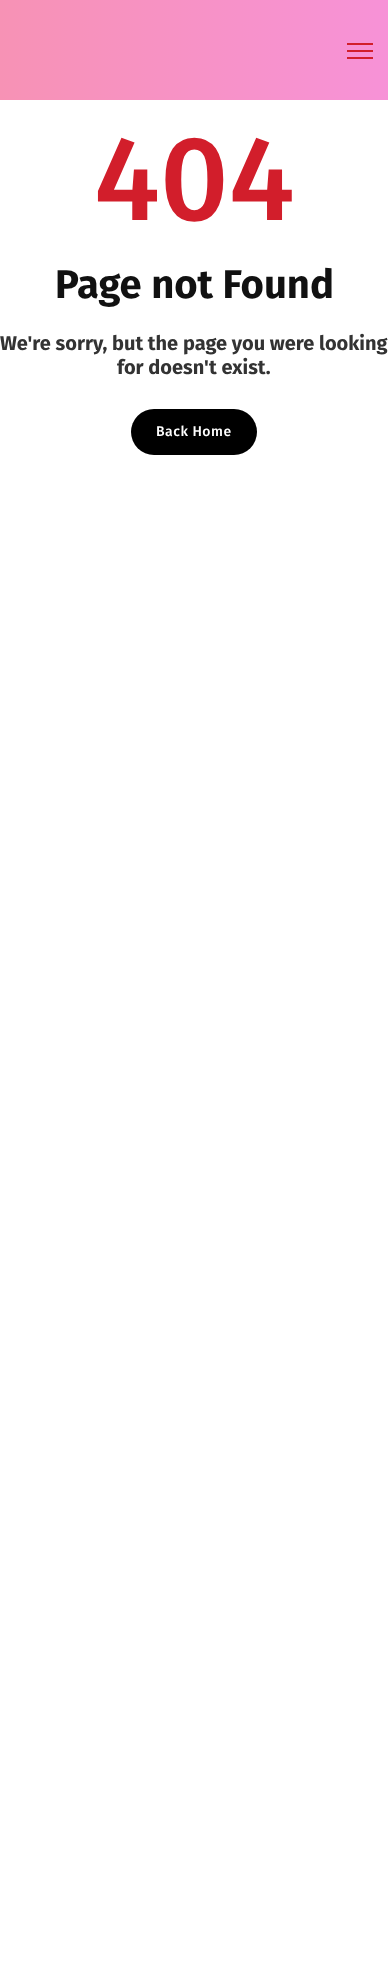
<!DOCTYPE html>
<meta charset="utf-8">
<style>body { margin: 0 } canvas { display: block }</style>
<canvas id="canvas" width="388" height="1963"></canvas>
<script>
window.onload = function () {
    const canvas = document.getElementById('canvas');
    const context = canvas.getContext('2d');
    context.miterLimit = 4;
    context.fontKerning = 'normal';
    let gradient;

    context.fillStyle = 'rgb(255, 255, 255)';
    context.fillRect(0, 0, 388, 1963);
    gradient = context.createLinearGradient(0, 50, 388, 50);
    gradient.addColorStop(0, 'rgb(247, 146, 181)');
    gradient.addColorStop(1, 'rgb(247, 146, 215)');
    context.fillStyle = gradient;
    context.fillRect(0, 0, 388, 100);
    context.fillStyle = 'rgb(210, 30, 43)';
    context.fillRect(347, 43, 26, 2);
    context.fillRect(347, 50, 26, 2);
    context.fillRect(347, 57, 26, 2);
    context.fillStyle = 'rgb(0, 0, 0)';
    context.beginPath();
    context.roundRect(131, 409, 126, 46, 23);
    context.fill();
    context.font = '500 120px Fira Sans';
    context.fillStyle = 'rgb(210, 30, 43)';
    context.fillText('404', 94, 220);
    context.font = 'bold 40px Fira Sans';
    context.fillStyle = 'rgb(17, 17, 17)';
    context.fillText('Page not Found', 55, 298);
    context.font = 'bold 20px Fira Sans';
    context.fillStyle = 'rgb(51, 51, 51)';
    context.fillText('We\'re sorry, but the page you were looking', 0, 350);
    context.fillText('for doesn\'t exist.', 117, 374);
    context.letterSpacing = '0.5px';
    context.font = '500 14px Fira Sans';
    context.fillStyle = 'rgb(255, 255, 255)';
    context.fillText('Back Home', 156, 436);
};
</script>
